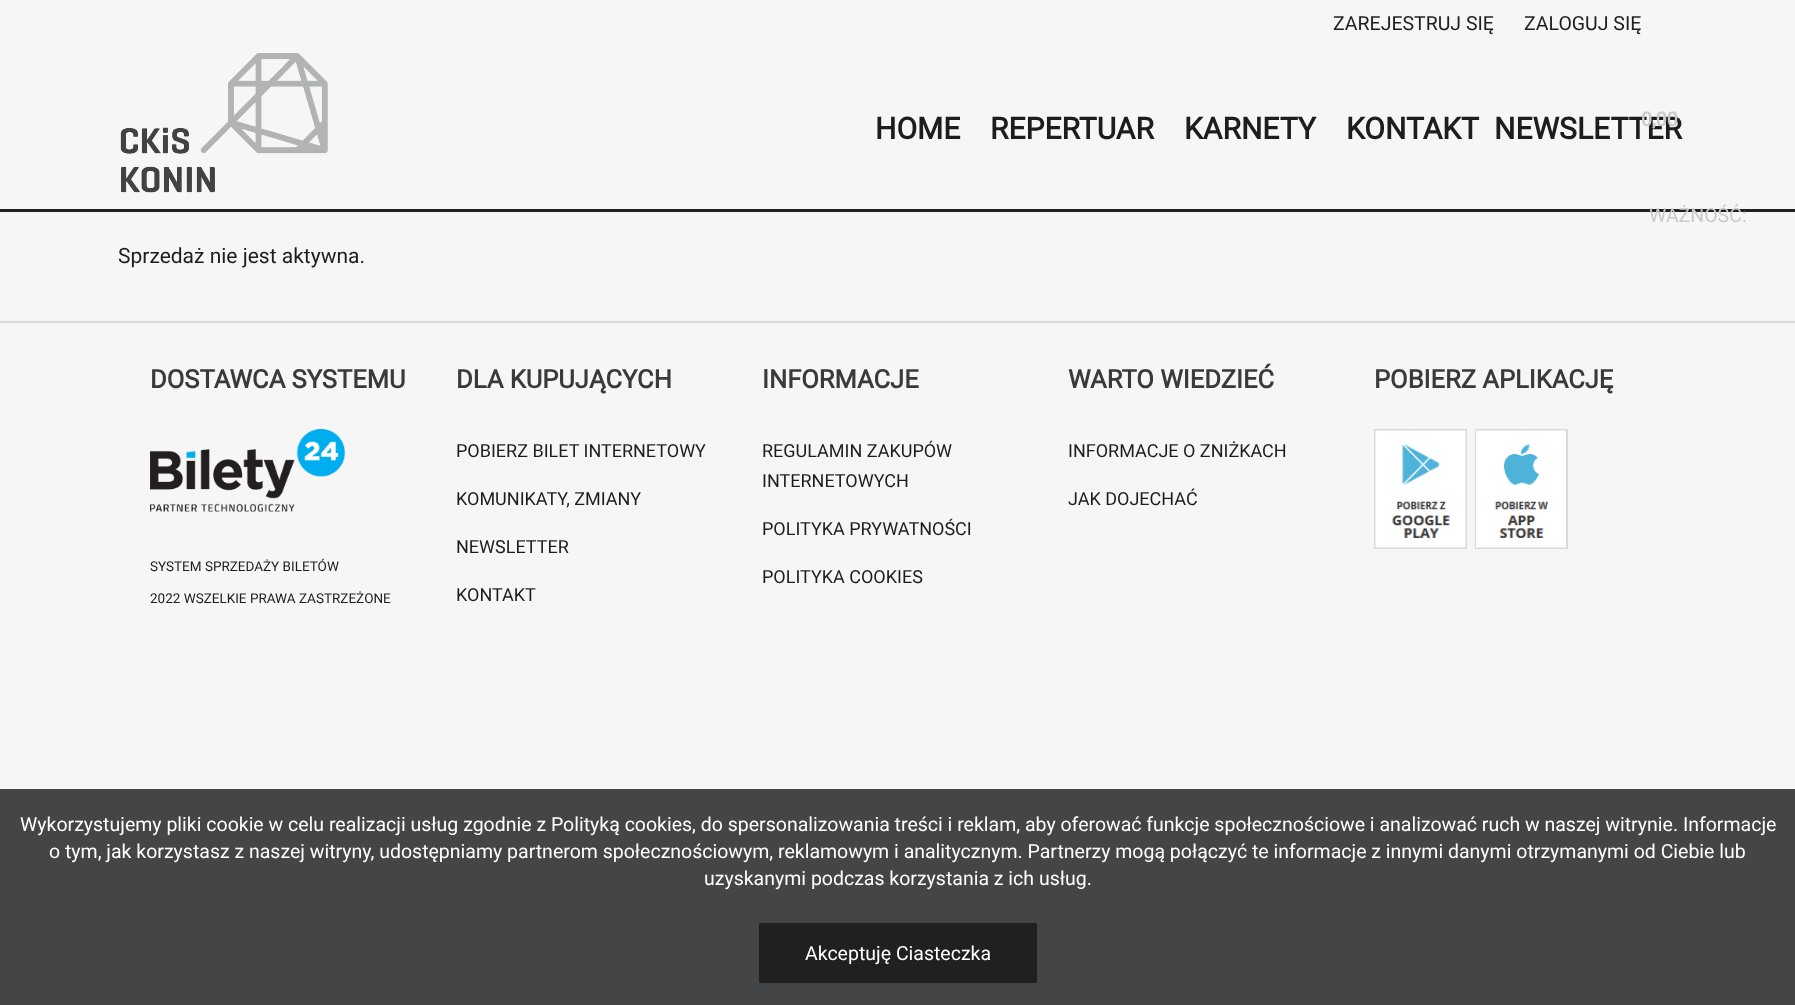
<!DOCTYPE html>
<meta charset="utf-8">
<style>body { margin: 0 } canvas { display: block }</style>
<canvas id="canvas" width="1795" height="1005"></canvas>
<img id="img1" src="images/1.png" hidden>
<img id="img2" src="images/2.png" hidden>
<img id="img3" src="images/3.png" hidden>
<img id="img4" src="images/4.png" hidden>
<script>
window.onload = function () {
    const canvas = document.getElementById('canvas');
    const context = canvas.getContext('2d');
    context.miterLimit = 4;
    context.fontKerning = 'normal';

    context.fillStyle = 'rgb(246, 246, 246)';
    context.fillRect(0, 0, 1795, 1005);
    context.fillStyle = 'rgb(32, 32, 32)';
    context.fillRect(0, 209, 1795, 3);
    context.drawImage(document.getElementById('img1'), 120, 53, 208, 140);
    context.fillStyle = 'rgb(217, 217, 217)';
    context.fillRect(0, 321, 1795, 2);
    context.drawImage(document.getElementById('img2'), 150, 429, 195, 83);
    context.strokeStyle = 'rgb(217, 217, 217)';
    context.lineWidth = 2;
    context.strokeRect(1375, 430, 91, 118);
    context.strokeRect(1476, 430, 91, 118);
    context.drawImage(document.getElementById('img3'), 1375, 430, 91, 118);
    context.drawImage(document.getElementById('img4'), 1476, 430, 90, 118);
    context.fillStyle = 'rgb(68, 69, 70)';
    context.fillRect(0, 789, 1795, 216);
    context.fillStyle = 'rgb(32, 32, 32)';
    context.beginPath();
    context.roundRect(759, 923, 278, 60, 1.5);
    context.fill();
    context.font = '19.5px Roboto';
    context.fillStyle = 'rgb(29, 29, 27)';
    context.fillText('ZAREJESTRUJ SIĘ', 1333, 30);
    context.fillText('ZALOGUJ SIĘ', 1524, 30);
    context.fillStyle = 'rgb(202, 202, 202)';
    context.fillText('WAŻNOŚĆ:', 1649, 222);
    context.font = 'bold 30px Roboto';
    context.fillStyle = 'rgb(29, 29, 27)';
    context.fillText('HOME', 875, 139);
    context.fillText('REPERTUAR', 990, 139);
    context.fillText('KARNETY', 1184, 139);
    context.fillText('KONTAKT', 1346, 139);
    context.fillText('NEWSLETTER', 1494, 139);
    context.font = 'bold 19.5px Roboto';
    context.fillStyle = 'rgb(202, 202, 202)';
    context.fillText('0,00', 1641, 126);
    context.font = '21px Roboto';
    context.fillStyle = 'rgb(29, 29, 27)';
    context.fillText('Sprzedaż nie jest aktywna.', 118, 263);
    context.font = 'bold 25.5px Roboto';
    context.fillStyle = 'rgb(57, 58, 59)';
    context.fillText('DOSTAWCA SYSTEMU', 150, 388);
    context.font = '13.5px Roboto';
    context.fillStyle = 'rgb(29, 29, 27)';
    context.fillText('SYSTEM SPRZEDAŻY BILETÓW', 150, 571);
    context.fillText('2022 WSZELKIE PRAWA ZASTRZEŻONE', 150, 603);
    context.font = 'bold 25.5px Roboto';
    context.fillStyle = 'rgb(57, 58, 59)';
    context.fillText('DLA KUPUJĄCYCH', 456, 388);
    context.font = '18px Roboto';
    context.fillStyle = 'rgb(29, 29, 27)';
    context.fillText('POBIERZ BILET INTERNETOWY', 456, 457);
    context.fillText('KOMUNIKATY, ZMIANY', 456, 505);
    context.fillText('NEWSLETTER', 456, 553);
    context.fillText('KONTAKT', 456, 601);
    context.font = 'bold 25.5px Roboto';
    context.fillStyle = 'rgb(57, 58, 59)';
    context.fillText('INFORMACJE', 762, 388);
    context.font = '18px Roboto';
    context.fillStyle = 'rgb(29, 29, 27)';
    context.fillText('REGULAMIN ZAKUPÓW', 762, 457);
    context.fillText('INTERNETOWYCH', 762, 487);
    context.fillText('POLITYKA PRYWATNOŚCI', 762, 535);
    context.fillText('POLITYKA COOKIES', 762, 583);
    context.font = 'bold 25.5px Roboto';
    context.fillStyle = 'rgb(57, 58, 59)';
    context.fillText('WARTO WIEDZIEĆ', 1068, 388);
    context.font = '18px Roboto';
    context.fillStyle = 'rgb(29, 29, 27)';
    context.fillText('INFORMACJE O ZNIŻKACH', 1068, 457);
    context.fillText('JAK DOJECHAĆ', 1068, 505);
    context.font = 'bold 25.5px Roboto';
    context.fillStyle = 'rgb(57, 58, 59)';
    context.fillText('POBIERZ APLIKACJĘ', 1374, 388);
    context.font = '19.5px Roboto';
    context.fillStyle = 'rgb(255, 255, 255)';
    context.fillText('Wykorzystujemy pliki cookie w celu realizacji usług zgodnie z Polityką cookies, do spersonalizowania treści i reklam, aby oferować funkcje społecznościowe i analizować ruch w naszej witrynie. Informacje', 20, 831);
    context.fillText('o tym, jak korzystasz z naszej witryny, udostępniamy partnerom społecznościowym, reklamowym i analitycznym. Partnerzy mogą połączyć te informacje z innymi danymi otrzymanymi od Ciebie lub', 49, 858);
    context.fillText('uzyskanymi podczas korzystania z ich usług.', 704, 885);
    context.fillText('Akceptuję Ciasteczka', 805, 960);
};
</script>
